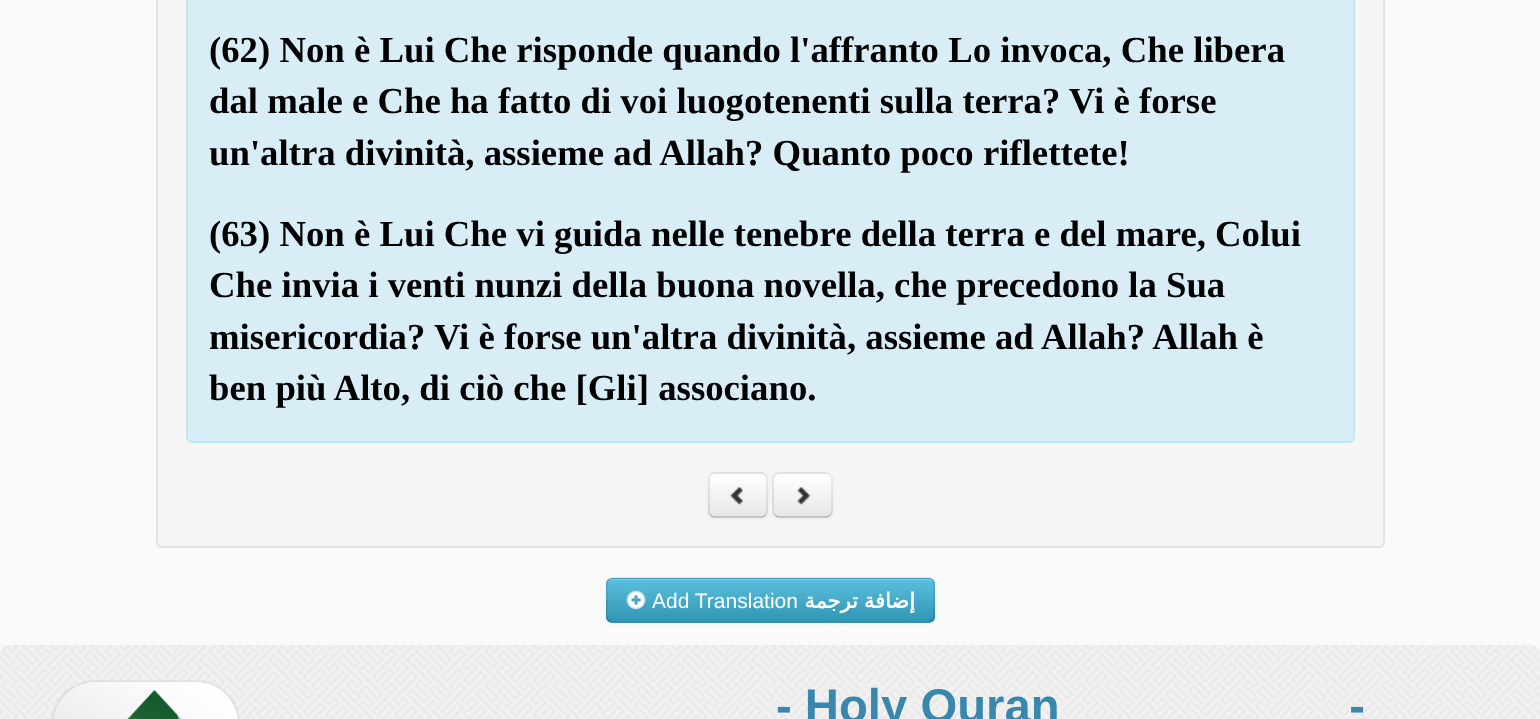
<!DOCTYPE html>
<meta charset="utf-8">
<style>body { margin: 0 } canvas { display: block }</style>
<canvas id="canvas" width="1540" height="719"></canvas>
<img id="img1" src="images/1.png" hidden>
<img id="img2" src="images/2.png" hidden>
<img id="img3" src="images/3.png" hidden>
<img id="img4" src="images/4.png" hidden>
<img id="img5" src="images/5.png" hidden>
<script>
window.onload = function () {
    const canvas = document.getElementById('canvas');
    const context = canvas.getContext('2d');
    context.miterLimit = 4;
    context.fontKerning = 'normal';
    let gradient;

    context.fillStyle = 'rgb(250, 250, 250)';
    context.fillRect(0, 0, 1540, 719);
    context.fillStyle = 'rgb(245, 245, 245)';
    context.beginPath();
    context.roundRect(157, -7, 1227, 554, 5);
    context.fill();
    context.strokeStyle = 'rgb(227, 227, 227)';
    context.lineWidth = 2;
    context.stroke();
    context.fillStyle = 'rgb(217, 237, 247)';
    context.beginPath();
    context.roundRect(187, -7, 1167, 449, 5);
    context.fill();
    context.strokeStyle = 'rgb(188, 232, 241)';
    context.stroke();
    context.fillStyle = 'rgba(0, 0, 0, 0.05)';
    context.filter = 'blur(1.5px)';
    context.beginPath();
    context.roundRect(773, 474, 60, 45, 6);
    context.fill();
    context.filter = 'none';
    context.fillStyle = 'rgb(245, 245, 245)';
    context.beginPath();
    context.roundRect(773, 473, 60, 45, 6);
    context.fill();
    context.save();
    context.beginPath();
    context.roundRect(773, 473, 60, 45, 6);
    context.clip();
    gradient = context.createLinearGradient(803, 474, 803, 516);
    gradient.addColorStop(0, 'rgb(255, 255, 255)');
    gradient.addColorStop(1, 'rgb(230, 230, 230)');
    context.fillStyle = gradient;
    context.fillRect(773, 474, 60, 42);
    context.restore();
    context.beginPath();
    context.moveTo(830, 515);
    context.bezierCurveTo(829, 516, 828, 517, 826.5, 517);
    context.lineTo(778.5, 517);
    context.bezierCurveTo(777, 517, 776, 516, 775, 515);
    context.strokeStyle = 'rgb(179, 179, 179)';
    context.lineWidth = 1.5;
    context.stroke();
    context.beginPath();
    context.moveTo(775, 515);
    context.bezierCurveTo(774, 514, 773, 513, 773, 511.5);
    context.lineTo(773, 478.5);
    context.bezierCurveTo(773, 477, 774, 476, 775, 475);
    context.bezierCurveTo(776, 474, 777, 473, 778.5, 473);
    context.lineTo(826.5, 473);
    context.bezierCurveTo(828, 473, 829, 474, 830, 475);
    context.bezierCurveTo(831, 476, 832, 477, 832, 478.5);
    context.lineTo(832, 511.5);
    context.bezierCurveTo(832, 513, 831, 514, 830, 515);
    context.strokeStyle = 'rgba(0, 0, 0, 0.1)';
    context.stroke();
    context.fillStyle = 'rgba(0, 0, 0, 0.05)';
    context.filter = 'blur(1.5px)';
    context.beginPath();
    context.roundRect(708, 474, 60, 45, 6);
    context.fill();
    context.filter = 'none';
    context.fillStyle = 'rgb(245, 245, 245)';
    context.beginPath();
    context.roundRect(708, 473, 60, 45, 6);
    context.fill();
    context.save();
    context.beginPath();
    context.roundRect(708, 473, 60, 45, 6);
    context.clip();
    gradient = context.createLinearGradient(738, 474, 738, 516);
    gradient.addColorStop(0, 'rgb(255, 255, 255)');
    gradient.addColorStop(1, 'rgb(230, 230, 230)');
    context.fillStyle = gradient;
    context.fillRect(708, 474, 60, 42);
    context.restore();
    context.fillStyle = 'rgba(255, 255, 255, 0.2)';
    context.beginPath();
    context.moveTo(714, 476);
    context.lineTo(746, 476);
    context.bezierCurveTo(767, 476, 766, 472, 766, 491);
    context.lineTo(766, 514);
    context.bezierCurveTo(768, 512, 767, 508, 767, 506);
    context.lineTo(767, 495);
    context.bezierCurveTo(767, 471, 770, 474, 746, 474);
    context.lineTo(723, 474);
    context.bezierCurveTo(717, 474, 710, 472, 710, 480);
    context.bezierCurveTo(710, 478, 712, 476, 714, 476);
    context.closePath();
    context.fill();
    context.beginPath();
    context.moveTo(765.5, 515);
    context.bezierCurveTo(764.5, 516, 763.5, 517, 762, 517);
    context.lineTo(714, 517);
    context.bezierCurveTo(712.5, 517, 711.5, 516, 710.5, 515);
    context.strokeStyle = 'rgb(179, 179, 179)';
    context.stroke();
    context.beginPath();
    context.moveTo(710.5, 515);
    context.bezierCurveTo(709.5, 514, 709, 513, 709, 511.5);
    context.lineTo(709, 478.5);
    context.bezierCurveTo(709, 477, 709.5, 476, 710.5, 475);
    context.bezierCurveTo(711.5, 474, 712.5, 473, 714, 473);
    context.lineTo(762, 473);
    context.bezierCurveTo(763.5, 473, 764.5, 474, 765.5, 475);
    context.bezierCurveTo(766.5, 476, 767, 477, 767, 478.5);
    context.lineTo(767, 511.5);
    context.bezierCurveTo(767, 513, 766.5, 514, 765.5, 515);
    context.strokeStyle = 'rgba(0, 0, 0, 0.1)';
    context.stroke();
    context.drawImage(document.getElementById('img1'), 730, 487, 13, 18);
    context.drawImage(document.getElementById('img2'), 797, 487, 14, 18);
    context.fillStyle = 'rgba(0, 0, 0, 0.05)';
    context.filter = 'blur(1.5px)';
    context.beginPath();
    context.roundRect(606, 579, 329, 45, 6);
    context.fill();
    context.filter = 'none';
    context.fillStyle = 'rgb(73, 175, 205)';
    context.beginPath();
    context.roundRect(606, 578, 329, 45, 6);
    context.fill();
    context.save();
    context.beginPath();
    context.roundRect(606, 578, 329, 45, 6);
    context.clip();
    gradient = context.createLinearGradient(770, 579, 770, 621);
    gradient.addColorStop(0, 'rgb(91, 192, 222)');
    gradient.addColorStop(1, 'rgb(47, 150, 180)');
    context.fillStyle = gradient;
    context.fillRect(606, 579, 329, 42);
    context.restore();
    context.fillStyle = 'rgb(123, 205, 229)';
    context.beginPath();
    context.moveTo(612, 580);
    context.lineTo(928, 580);
    context.bezierCurveTo(931, 580, 933, 583, 933, 585);
    context.bezierCurveTo(933, 582, 931, 579, 928, 579);
    context.lineTo(613, 579);
    context.bezierCurveTo(610, 579, 608, 582, 608, 585);
    context.bezierCurveTo(608, 583, 610, 580, 612, 580);
    context.closePath();
    context.fill();
    context.beginPath();
    context.moveTo(932, 620);
    context.bezierCurveTo(931, 621, 930, 622, 928.5, 622);
    context.lineTo(612, 622);
    context.bezierCurveTo(610.5, 622, 609.5, 621, 608.5, 620);
    context.strokeStyle = 'rgba(0, 0, 0, 0.25)';
    context.stroke();
    context.beginPath();
    context.moveTo(608.5, 620);
    context.bezierCurveTo(605, 617, 607, 609, 607, 605.5);
    context.lineTo(607, 594.5);
    context.bezierCurveTo(607, 590.5, 604.5, 578.5, 612, 578);
    context.lineTo(928.5, 578);
    context.bezierCurveTo(936, 578.5, 934, 590.5, 934, 594.5);
    context.lineTo(934, 605.5);
    context.bezierCurveTo(934, 609, 935.5, 617, 932, 620);
    context.strokeStyle = 'rgba(0, 0, 0, 0.1)';
    context.stroke();
    context.drawImage(document.getElementById('img3'), 626, 590, 20, 21);
    context.drawImage(document.getElementById('img4'), 0, 645, 1540, 74);
    context.drawImage(document.getElementById('img5'), 51, 680, 189, 39);
    context.font = 'bold 36.75px Liberation Serif';
    context.fillStyle = 'rgb(0, 0, 0)';
    context.fillText('(62) Non è Lui Che risponde quando l\'affranto Lo invoca, Che libera', 209, 62);
    context.fillText('dal male e Che ha fatto di voi luogotenenti sulla terra? Vi è forse', 209, 113);
    context.fillText('un\'altra divinità, assieme ad Allah? Quanto poco riflettete!', 209, 165);
    context.fillText('(63) Non è Lui Che vi guida nelle tenebre della terra e del mare, Colui', 209, 246);
    context.fillText('Che invia i venti nunzi della buona novella, che precedono la Sua', 209, 297);
    context.fillText('misericordia? Vi è forse un\'altra divinità, assieme ad Allah? Allah è', 209, 349);
    context.fillText('ben più Alto, di ciò che [Gli] associano.', 209, 400);
    context.font = '21px Liberation Sans';
    context.fillStyle = 'rgb(255, 255, 255)';
    context.fillText('Add Translation', 652, 608);
    context.wordSpacing = '-1px';
    context.direction = 'rtl';
    context.font = 'bold 21px DejaVu Sans';
    context.fillText('إضافة ترجمة', 915, 608);
    context.wordSpacing = '0px';
    context.direction = 'ltr';
    context.font = 'bold 47.25px Liberation Sans';
    context.fillStyle = 'rgb(58, 135, 173)';
    context.fillText('- Holy Quran', 776, 722);
    context.direction = 'rtl';
    context.fillText('-', 1365, 722);
};
</script>
